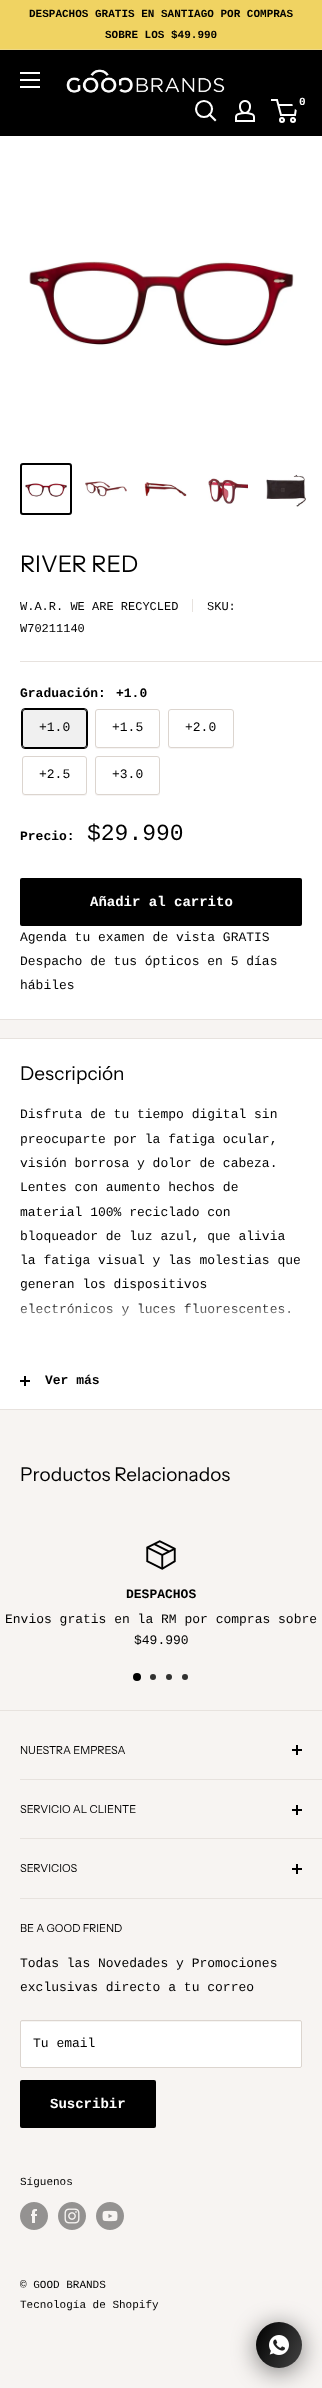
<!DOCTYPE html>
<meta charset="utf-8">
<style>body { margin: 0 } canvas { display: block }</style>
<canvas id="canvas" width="322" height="2388"></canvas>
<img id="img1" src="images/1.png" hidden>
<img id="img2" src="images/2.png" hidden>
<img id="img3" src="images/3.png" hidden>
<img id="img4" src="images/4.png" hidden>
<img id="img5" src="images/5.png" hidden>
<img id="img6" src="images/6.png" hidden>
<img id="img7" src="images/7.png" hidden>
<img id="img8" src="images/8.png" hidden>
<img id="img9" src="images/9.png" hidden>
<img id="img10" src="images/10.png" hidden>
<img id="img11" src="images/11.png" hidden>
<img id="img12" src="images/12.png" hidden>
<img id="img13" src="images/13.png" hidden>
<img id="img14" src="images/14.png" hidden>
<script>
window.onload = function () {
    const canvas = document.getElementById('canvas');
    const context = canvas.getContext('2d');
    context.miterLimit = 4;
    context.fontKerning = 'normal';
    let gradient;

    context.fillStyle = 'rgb(247, 244, 242)';
    context.fillRect(0, 0, 322, 2388);
    context.fillStyle = 'rgb(240, 211, 98)';
    context.fillRect(0, 0, 322, 49);
    context.fillStyle = 'rgb(238, 216, 135)';
    context.fillRect(0, 49, 322, 1);
    context.fillStyle = 'rgb(0, 0, 0)';
    context.fillRect(0, 50, 322, 86);
    context.drawImage(document.getElementById('img1'), 20, 72, 20, 16);
    context.drawImage(document.getElementById('img2'), 66, 69, 159, 24);
    context.beginPath();
    context.moveTo(215, 120);
    context.lineTo(209.5, 114.5);
    context.strokeStyle = 'rgb(255, 255, 255)';
    context.lineWidth = 2.1;
    context.lineCap = 'square';
    context.stroke();
    context.beginPath();
    context.arc(204, 109, 8, 0, 2 * Math.PI);
    context.stroke();
    context.drawImage(document.getElementById('img3'), 235, 100, 20, 22);
    context.beginPath();
    context.arc(282, 120, 2, 0, 2 * Math.PI);
    context.lineWidth = 2;
    context.stroke();
    context.beginPath();
    context.arc(293, 120, 2, 0, 2 * Math.PI);
    context.stroke();
    context.beginPath();
    context.moveTo(278.5, 105);
    context.lineTo(296.5, 105);
    context.lineTo(295, 115);
    context.lineTo(281, 115);
    context.lineTo(277, 100);
    context.lineTo(271, 100);
    context.lineCap = 'butt';
    context.stroke();
    context.beginPath();
    context.arc(302, 102, 10, 0, 2 * Math.PI);
    context.fill();
    context.fillStyle = 'rgb(255, 255, 255)';
    context.fillRect(0, 136, 322, 883);
    context.drawImage(document.getElementById('img4'), 29, 261, 265, 85);
    context.beginPath();
    context.roundRect(21, 464, 50, 50, 2);
    context.strokeStyle = 'rgb(0, 0, 0)';
    context.stroke();
    context.drawImage(document.getElementById('img5'), 25, 483, 42, 14);
    context.drawImage(document.getElementById('img6'), 85, 481, 42, 16);
    context.drawImage(document.getElementById('img7'), 144, 482, 43, 15);
    context.drawImage(document.getElementById('img8'), 208, 478, 40, 26);
    context.drawImage(document.getElementById('img9'), 266, 474, 40, 33);
    context.fillStyle = 'rgb(231, 226, 222)';
    context.fillRect(0, 1019, 322, 1);
    context.fillRect(192, 599, 1, 13);
    context.fillRect(20, 661, 302, 1);
    context.beginPath();
    context.roundRect(21.5, 708.5, 66, 40, 3.5);
    context.lineWidth = 1;
    context.stroke();
    context.fillStyle = 'rgba(0, 0, 0, 0.06)';
    context.fillRect(22, 709, 65, 39);
    context.beginPath();
    context.roundRect(22.5, 709.5, 64, 38, 2.5);
    context.stroke();
    context.save();
    context.beginPath();
    context.moveTo(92, 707);
    context.lineTo(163, 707);
    context.lineTo(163, 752);
    context.lineTo(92, 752);
    context.closePath();
    context.moveTo(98, 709);
    context.lineTo(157, 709);
    context.bezierCurveTo(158.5, 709, 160, 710.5, 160, 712);
    context.lineTo(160, 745);
    context.bezierCurveTo(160, 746.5, 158.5, 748, 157, 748);
    context.lineTo(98, 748);
    context.bezierCurveTo(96.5, 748, 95, 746.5, 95, 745);
    context.lineTo(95, 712);
    context.bezierCurveTo(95, 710.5, 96.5, 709, 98, 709);
    context.closePath();
    context.clip('evenodd');
    context.fillStyle = 'rgba(220, 213, 207, 0.25)';
    context.filter = 'blur(0.5px)';
    context.beginPath();
    context.roundRect(95, 710, 65, 39, 3);
    context.fill();
    context.filter = 'none';
    context.restore();
    context.beginPath();
    context.roundRect(95.5, 709.5, 64, 38, 2.5);
    context.strokeStyle = 'rgb(220, 213, 207)';
    context.stroke();
    context.save();
    context.beginPath();
    context.moveTo(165, 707);
    context.lineTo(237, 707);
    context.lineTo(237, 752);
    context.lineTo(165, 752);
    context.closePath();
    context.moveTo(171, 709);
    context.lineTo(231, 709);
    context.bezierCurveTo(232.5, 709, 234, 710.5, 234, 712);
    context.lineTo(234, 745);
    context.bezierCurveTo(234, 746.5, 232.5, 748, 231, 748);
    context.lineTo(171, 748);
    context.bezierCurveTo(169.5, 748, 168, 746.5, 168, 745);
    context.lineTo(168, 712);
    context.bezierCurveTo(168, 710.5, 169.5, 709, 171, 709);
    context.closePath();
    context.clip('evenodd');
    context.fillStyle = 'rgba(220, 213, 207, 0.25)';
    context.filter = 'blur(0.5px)';
    context.beginPath();
    context.roundRect(168, 710, 66, 39, 3);
    context.fill();
    context.filter = 'none';
    context.restore();
    context.beginPath();
    context.roundRect(168.5, 709.5, 65, 38, 2.5);
    context.stroke();
    context.save();
    context.beginPath();
    context.moveTo(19, 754);
    context.lineTo(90, 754);
    context.lineTo(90, 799);
    context.lineTo(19, 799);
    context.closePath();
    context.moveTo(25, 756);
    context.lineTo(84, 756);
    context.bezierCurveTo(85.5, 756, 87, 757.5, 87, 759);
    context.lineTo(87, 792);
    context.bezierCurveTo(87, 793.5, 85.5, 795, 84, 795);
    context.lineTo(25, 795);
    context.bezierCurveTo(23.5, 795, 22, 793.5, 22, 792);
    context.lineTo(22, 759);
    context.bezierCurveTo(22, 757.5, 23.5, 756, 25, 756);
    context.closePath();
    context.clip('evenodd');
    context.fillStyle = 'rgba(220, 213, 207, 0.25)';
    context.filter = 'blur(0.5px)';
    context.beginPath();
    context.roundRect(22, 757, 65, 39, 3);
    context.fill();
    context.filter = 'none';
    context.restore();
    context.beginPath();
    context.roundRect(22.5, 756.5, 64, 38, 2.5);
    context.stroke();
    context.save();
    context.beginPath();
    context.moveTo(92, 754);
    context.lineTo(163, 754);
    context.lineTo(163, 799);
    context.lineTo(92, 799);
    context.closePath();
    context.moveTo(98, 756);
    context.lineTo(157, 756);
    context.bezierCurveTo(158.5, 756, 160, 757.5, 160, 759);
    context.lineTo(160, 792);
    context.bezierCurveTo(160, 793.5, 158.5, 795, 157, 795);
    context.lineTo(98, 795);
    context.bezierCurveTo(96.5, 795, 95, 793.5, 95, 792);
    context.lineTo(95, 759);
    context.bezierCurveTo(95, 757.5, 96.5, 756, 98, 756);
    context.closePath();
    context.clip('evenodd');
    context.fillStyle = 'rgba(220, 213, 207, 0.25)';
    context.filter = 'blur(0.5px)';
    context.beginPath();
    context.roundRect(95, 757, 65, 39, 3);
    context.fill();
    context.filter = 'none';
    context.restore();
    context.beginPath();
    context.roundRect(95.5, 756.5, 64, 38, 2.5);
    context.stroke();
    context.fillStyle = 'rgb(0, 0, 0)';
    context.beginPath();
    context.roundRect(20, 878, 282, 48, 2);
    context.fill();
    context.fillStyle = 'rgb(255, 255, 255)';
    context.fillRect(0, 1039, 322, 370);
    context.fillStyle = 'rgb(231, 226, 222)';
    context.fillRect(0, 1038, 322, 1);
    context.fillRect(0, 1409, 322, 1);
    context.fillStyle = 'rgb(0, 0, 0)';
    context.fillRect(24, 1376, 2, 10);
    context.fillRect(20, 1380, 10, 2);
    context.drawImage(document.getElementById('img10'), 146, 1540, 30, 30);
    context.beginPath();
    context.arc(137, 1677, 4, 0, 2 * Math.PI);
    context.fill();
    context.fillStyle = 'rgb(49, 49, 48)';
    context.beginPath();
    context.arc(153, 1677, 3, 0, 2 * Math.PI);
    context.fill();
    context.beginPath();
    context.arc(169, 1677, 3, 0, 2 * Math.PI);
    context.fill();
    context.beginPath();
    context.arc(185, 1677, 3, 0, 2 * Math.PI);
    context.fill();
    context.fillStyle = 'rgb(231, 226, 222)';
    context.fillRect(0, 1710, 322, 1);
    context.fillRect(20, 1779, 302, 1);
    context.fillStyle = 'rgb(0, 0, 0)';
    context.fillRect(296, 1745, 2, 10);
    context.fillRect(292, 1749, 10, 2);
    context.fillStyle = 'rgb(231, 226, 222)';
    context.fillRect(20, 1838, 302, 1);
    context.fillStyle = 'rgb(0, 0, 0)';
    context.fillRect(296, 1805, 2, 10);
    context.fillRect(292, 1809, 10, 2);
    context.fillStyle = 'rgb(231, 226, 222)';
    context.fillRect(20, 1898, 302, 1);
    context.fillStyle = 'rgb(0, 0, 0)';
    context.fillRect(296, 1864, 2, 10);
    context.fillRect(292, 1868, 10, 2);
    context.fillStyle = 'rgb(255, 255, 255)';
    context.beginPath();
    context.roundRect(20, 2020, 282, 48, 2);
    context.fill();
    context.fillStyle = 'rgb(246, 245, 243)';
    context.beginPath();
    context.moveTo(22, 2022);
    context.lineTo(300, 2022);
    context.bezierCurveTo(301, 2022, 301, 2022, 301, 2023);
    context.bezierCurveTo(301, 2022, 301, 2021, 300, 2021);
    context.lineTo(22, 2021);
    context.lineTo(21, 2021);
    context.lineTo(21, 2023);
    context.bezierCurveTo(21, 2022, 21, 2022, 22, 2022);
    context.closePath();
    context.fill();
    context.beginPath();
    context.roundRect(20.5, 2020.5, 281, 47, 1.5);
    context.stroke();
    context.fillStyle = 'rgb(0, 0, 0)';
    context.beginPath();
    context.roundRect(20, 2080, 136, 48, 2);
    context.fill();
    context.drawImage(document.getElementById('img11'), 20, 2202, 28, 28);
    context.drawImage(document.getElementById('img12'), 58, 2202, 28, 28);
    context.drawImage(document.getElementById('img13'), 96, 2202, 28, 28);
    context.fillStyle = 'rgba(0, 0, 0, 0.5)';
    context.filter = 'blur(12px)';
    context.beginPath();
    context.roundRect(256, 2326, 46, 46, 23);
    context.fill();
    context.filter = 'none';
    gradient = context.createLinearGradient(251, 2332, 307, 2358);
    gradient.addColorStop(0, 'rgb(0, 0, 0)');
    gradient.addColorStop(1, 'rgb(67, 67, 67)');
    context.fillStyle = gradient;
    context.beginPath();
    context.arc(279, 2345, 23, 0, 2 * Math.PI);
    context.fill();
    context.drawImage(document.getElementById('img14'), 269, 2335, 20, 20);
    context.font = 'bold 11px Liberation Mono';
    context.fillStyle = 'rgb(0, 0, 0)';
    context.fillText('DESPACHOS GRATIS EN SANTIAGO POR COMPRAS', 29, 17);
    context.fillText('SOBRE LOS $49.990', 105, 38);
    context.fillStyle = 'rgb(255, 255, 255)';
    context.fillText('0', 299, 105);
    context.font = '23px Instrument Sans';
    context.fillStyle = 'rgb(0, 0, 0)';
    context.fillText('RIVER RED', 20, 572);
    context.font = '12px Liberation Mono';
    context.fillText('W.A.R. WE ARE RECYCLED', 20, 610);
    context.fillText('SKU:', 207, 610);
    context.fillText('W70211140', 20, 632);
    context.font = 'bold 13px Liberation Mono';
    context.fillText('Graduación:', 20, 697);
    context.fillText('+1.0', 116, 697);
    context.font = '13px Liberation Mono';
    context.fillText('+1.0', 39, 731);
    context.fillText('+1.5', 112, 731);
    context.fillText('+2.0', 185, 731);
    context.fillText('+2.5', 39, 778);
    context.fillText('+3.0', 112, 778);
    context.font = 'bold 13px Liberation Mono';
    context.fillText('Precio:', 20, 840);
    context.font = '23px Liberation Mono';
    context.fillText('$29.990', 87, 840);
    context.font = 'bold 14px Liberation Mono';
    context.fillStyle = 'rgb(255, 255, 255)';
    context.fillText('Añadir al carrito', 90, 906);
    context.font = '13px Liberation Mono';
    context.fillStyle = 'rgb(0, 0, 0)';
    context.fillText('Agenda tu examen de vista GRATIS', 20, 941);
    context.fillText('Despacho de tus ópticos en 5 días', 20, 965);
    context.fillText('hábiles', 20, 989);
    context.font = '19px Instrument Sans';
    context.fillText('Descripción', 20, 1080);
    context.font = '13px Liberation Mono';
    context.fillText('Disfruta de tu tiempo digital sin', 20, 1118);
    context.fillText('preocuparte por la fatiga ocular,', 20, 1143);
    context.fillText('visión borrosa y dolor de cabeza.', 20, 1167);
    context.fillText('Lentes con aumento hechos de', 20, 1191);
    context.fillText('material 100% reciclado con', 20, 1216);
    context.fillText('bloqueador de luz azul, que alivia', 20, 1240);
    context.fillText('la fatiga visual y las molestias que', 20, 1264);
    context.fillText('generan los dispositivos', 20, 1288);
    context.fillText('electrónicos y luces fluorescentes.', 20, 1313);
    gradient = context.createLinearGradient(161, 1303, 161, 1353);
    gradient.addColorStop(0, 'rgba(255, 255, 255, 0)');
    gradient.addColorStop(0.15, 'rgba(255, 255, 255, 0.4)');
    gradient.addColorStop(1, 'rgb(255, 255, 255)');
    context.fillStyle = gradient;
    context.fillRect(20, 1303, 270, 13);
    context.font = 'bold 13px Liberation Mono';
    context.fillStyle = 'rgb(0, 0, 0)';
    context.fillText('Ver más', 45, 1384);
    context.font = '19px Instrument Sans';
    context.fillText('Productos Relacionados', 20, 1481);
    context.font = 'bold 13px Liberation Mono';
    context.fillText('DESPACHOS', 126, 1598);
    context.font = '13px Liberation Mono';
    context.fillText('Envios gratis en la RM por compras sobre', 5, 1623);
    context.fillText('$49.990', 134, 1644);
    context.font = '11px Instrument Sans';
    context.fillText('NUESTRA EMPRESA', 20, 1754);
    context.fillText('SERVICIO AL CLIENTE', 20, 1813);
    context.fillText('SERVICIOS', 20, 1872);
    context.fillText('BE A GOOD FRIEND', 20, 1932);
    context.font = '13px Liberation Mono';
    context.fillText('Todas las Novedades y Promociones', 20, 1967);
    context.fillText('exclusivas directo a tu correo', 20, 1991);
    context.fillText('Tu email', 33, 2047);
    context.font = 'bold 14px Liberation Mono';
    context.fillStyle = 'rgb(255, 255, 255)';
    context.fillText('Suscribir', 50, 2108);
    context.font = '11px Liberation Mono';
    context.fillStyle = 'rgb(0, 0, 0)';
    context.fillText('Síguenos', 20, 2185);
    context.fillText('© GOOD BRANDS', 20, 2288);
    context.fillText('Tecnología de Shopify', 20, 2308);
};
</script>
